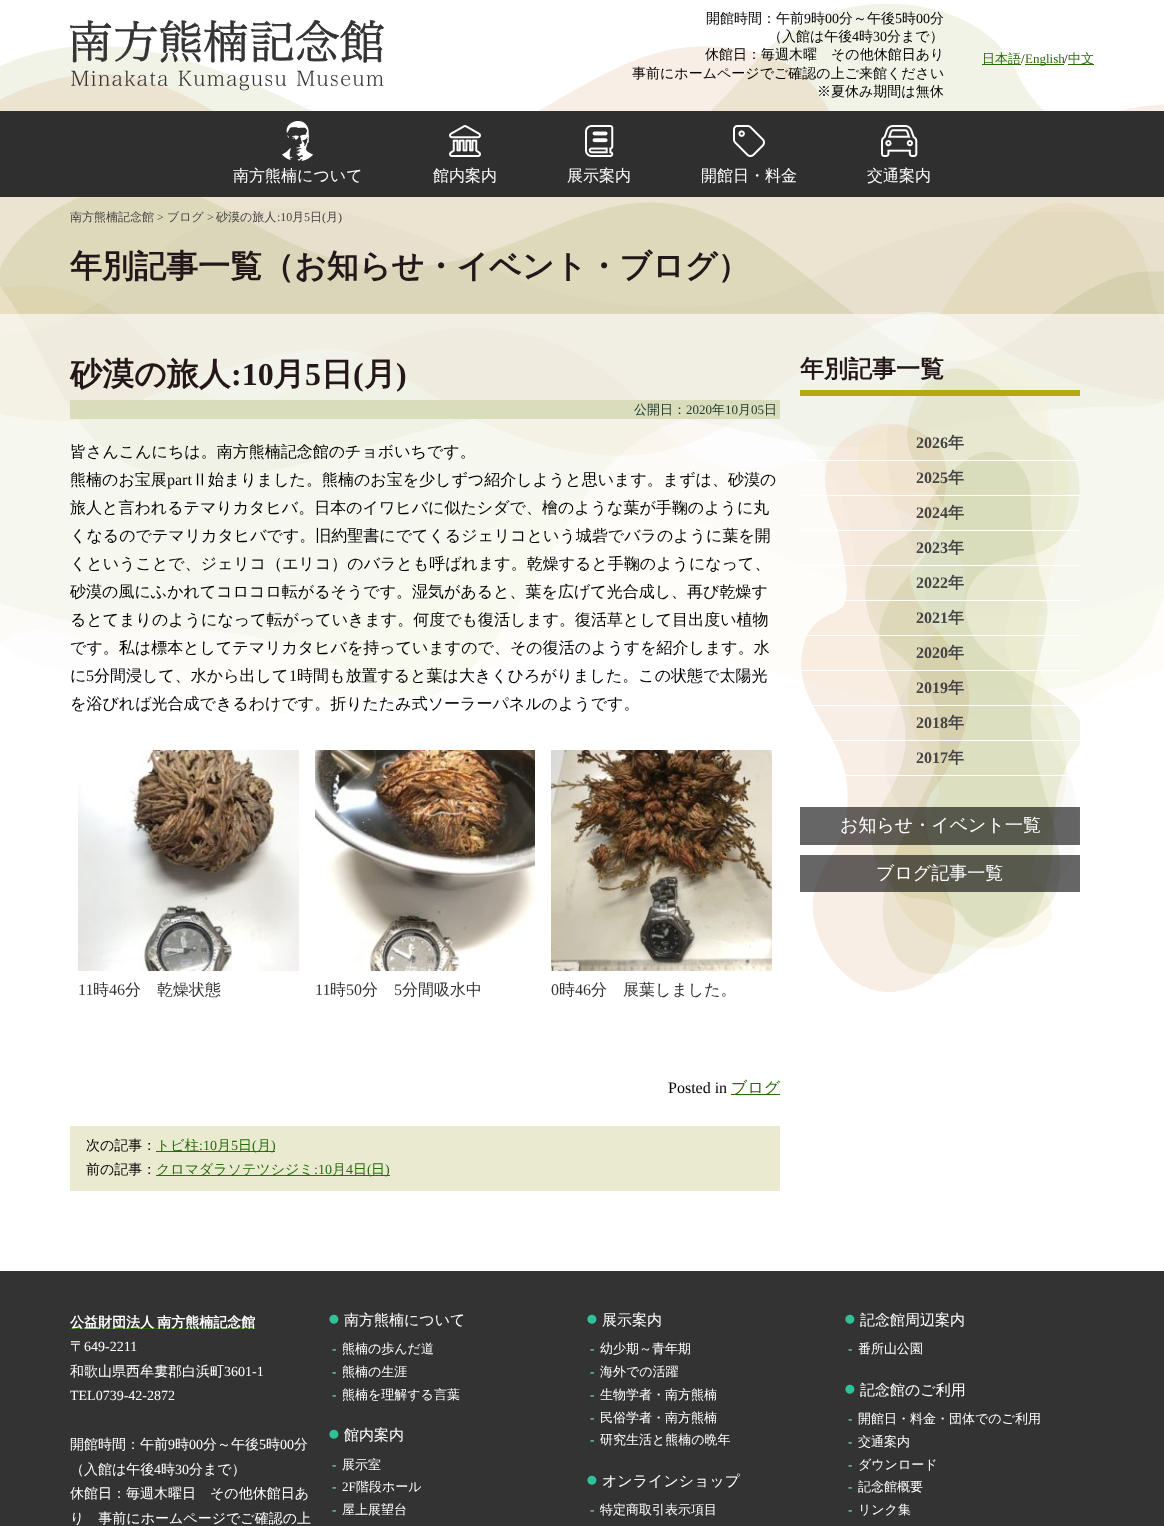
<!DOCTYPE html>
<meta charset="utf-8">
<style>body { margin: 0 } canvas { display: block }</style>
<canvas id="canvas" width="1164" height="1526"></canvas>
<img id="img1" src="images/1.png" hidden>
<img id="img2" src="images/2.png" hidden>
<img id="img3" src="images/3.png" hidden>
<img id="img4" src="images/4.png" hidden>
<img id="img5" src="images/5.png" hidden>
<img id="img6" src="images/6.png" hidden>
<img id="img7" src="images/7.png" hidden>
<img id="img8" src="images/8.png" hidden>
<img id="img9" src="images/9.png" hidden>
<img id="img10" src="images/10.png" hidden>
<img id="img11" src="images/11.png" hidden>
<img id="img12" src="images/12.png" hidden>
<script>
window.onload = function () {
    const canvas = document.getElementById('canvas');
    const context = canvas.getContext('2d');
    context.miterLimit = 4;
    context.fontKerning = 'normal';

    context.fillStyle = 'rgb(255, 255, 255)';
    context.fillRect(0, 0, 1164, 1526);
    context.drawImage(document.getElementById('img1'), 0, 3, 1164, 717);
    context.drawImage(document.getElementById('img2'), 70, 19, 314, 72);
    context.fillStyle = 'rgb(41, 108, 13)';
    context.fillRect(982, 64, 39, 1);
    context.fillRect(1025, 64, 39, 1);
    context.fillRect(1068, 64, 26, 1);
    context.fillStyle = 'rgb(47, 47, 47)';
    context.fillRect(0, 111, 1164, 86);
    context.drawImage(document.getElementById('img3'), 282, 121, 32, 40);
    context.drawImage(document.getElementById('img4'), 449, 125, 32, 32);
    context.drawImage(document.getElementById('img5'), 585, 125, 29, 32);
    context.drawImage(document.getElementById('img6'), 733, 125, 32, 32);
    context.drawImage(document.getElementById('img7'), 881, 125, 37, 32);
    context.fillStyle = 'rgba(255, 255, 255, 0.6)';
    context.fillRect(0, 314, 1164, 406);
    context.fillStyle = 'rgb(218, 221, 188)';
    context.fillRect(70, 400, 710, 19);
    context.drawImage(document.getElementById('img8'), 78, 750, 221, 221);
    context.drawImage(document.getElementById('img9'), 315, 750, 220, 221);
    context.drawImage(document.getElementById('img10'), 551, 750, 221, 221);
    context.fillStyle = 'rgb(41, 108, 13)';
    context.fillRect(731, 1094, 49, 1);
    context.fillStyle = 'rgb(233, 234, 208)';
    context.fillRect(70, 1126, 710, 65);
    context.fillStyle = 'rgb(41, 108, 13)';
    context.fillRect(156, 1151, 119, 1);
    context.fillRect(156, 1175, 234, 1);
    context.drawImage(document.getElementById('img11'), 801, 358, 279, 634);
    context.fillStyle = 'rgb(182, 168, 17)';
    context.fillRect(800, 390, 280, 6);
    context.fillStyle = 'rgb(255, 255, 255)';
    context.fillRect(800, 460, 280, 1);
    context.fillRect(800, 495, 280, 1);
    context.fillRect(800, 530, 280, 1);
    context.fillRect(800, 565, 280, 1);
    context.fillRect(800, 600, 280, 1);
    context.fillRect(800, 635, 280, 1);
    context.fillRect(800, 670, 280, 1);
    context.fillRect(812, 705, 268, 1);
    context.fillRect(832, 740, 248, 1);
    context.fillRect(845, 775, 224, 1);
    context.fillStyle = 'rgba(0, 0, 0, 0.6)';
    context.fillRect(800, 807, 280, 38);
    context.fillRect(800, 855, 280, 37);
    context.fillStyle = 'rgb(51, 51, 51)';
    context.fillRect(0, 1271, 1164, 255);
    context.fillStyle = 'rgb(41, 108, 13)';
    context.fillRect(70, 1328, 186, 1);
    context.drawImage(document.getElementById('img12'), 329, 1314, 10, 10);
    context.drawImage(document.getElementById('img12'), 329, 1429, 10, 10);
    context.drawImage(document.getElementById('img12'), 587, 1314, 10, 10);
    context.drawImage(document.getElementById('img12'), 587, 1475, 10, 10);
    context.drawImage(document.getElementById('img12'), 845, 1314, 10, 10);
    context.drawImage(document.getElementById('img12'), 845, 1384, 10, 10);
    context.font = '500 14px WenQuanYi Zen Hei';
    context.fillStyle = 'rgb(0, 0, 0)';
    context.fillText('開館時間：午前', 706, 23);
    context.font = '14px Liberation Serif';
    context.fillText('9', 804, 23);
    context.font = '500 14px WenQuanYi Zen Hei';
    context.fillText('時', 811, 23);
    context.font = '14px Liberation Serif';
    context.fillText('00', 825, 23);
    context.font = '500 14px WenQuanYi Zen Hei';
    context.fillText('分～午後', 839, 23);
    context.font = '14px Liberation Serif';
    context.fillText('5', 895, 23);
    context.font = '500 14px WenQuanYi Zen Hei';
    context.fillText('時', 902, 23);
    context.font = '14px Liberation Serif';
    context.fillText('00', 916, 23);
    context.font = '500 14px WenQuanYi Zen Hei';
    context.fillText('分', 930, 23);
    context.fillText('（入館は午後', 768, 41);
    context.font = '14px Liberation Serif';
    context.fillText('4', 852, 41);
    context.font = '500 14px WenQuanYi Zen Hei';
    context.fillText('時', 859, 41);
    context.font = '14px Liberation Serif';
    context.fillText('30', 873, 41);
    context.font = '500 14px WenQuanYi Zen Hei';
    context.fillText('分まで）', 887, 41);
    context.fillText('休館日：毎週木曜　その他休館日あり', 705, 59);
    context.fillText('事前にホームページでご確認の上ご来館ください', 632, 78);
    context.fillText('※夏休み期間は無休', 817, 96);
    context.font = '500 13px WenQuanYi Zen Hei';
    context.fillStyle = 'rgb(41, 108, 13)';
    context.fillText('日本語', 982, 63);
    context.font = '13px Liberation Serif';
    context.fillStyle = 'rgb(0, 0, 0)';
    context.fillText('/', 1021, 63);
    context.fillStyle = 'rgb(41, 108, 13)';
    context.fillText('English', 1025, 63);
    context.fillStyle = 'rgb(0, 0, 0)';
    context.fillText('/', 1064, 63);
    context.font = '500 13px WenQuanYi Zen Hei';
    context.fillStyle = 'rgb(41, 108, 13)';
    context.fillText('中文', 1068, 63);
    context.font = '500 16px WenQuanYi Zen Hei';
    context.fillStyle = 'rgb(255, 255, 255)';
    context.fillText('南方熊楠について', 233, 181);
    context.fillText('館内案内', 433, 181);
    context.fillText('展示案内', 567, 181);
    context.fillText('開館日・料金', 701, 181);
    context.fillText('交通案内', 867, 181);
    context.font = '500 12px WenQuanYi Zen Hei';
    context.fillStyle = 'rgb(68, 68, 68)';
    context.fillText('南方熊楠記念館', 70, 221);
    context.font = '12px Liberation Serif';
    context.fillText('>', 157, 221);
    context.font = '500 12px WenQuanYi Zen Hei';
    context.fillText('ブログ', 167, 221);
    context.font = '12px Liberation Serif';
    context.fillText('>', 207, 221);
    context.font = '500 12px WenQuanYi Zen Hei';
    context.fillText('砂漠の旅人', 216, 221);
    context.font = '12px Liberation Serif';
    context.fillText(':10', 277, 221);
    context.font = '500 12px WenQuanYi Zen Hei';
    context.fillText('月', 292, 221);
    context.font = '12px Liberation Serif';
    context.fillText('5', 304, 221);
    context.font = '500 12px WenQuanYi Zen Hei';
    context.fillText('日', 310, 221);
    context.font = '12px Liberation Serif';
    context.fillText('(', 322, 221);
    context.font = '500 12px WenQuanYi Zen Hei';
    context.fillText('月', 326, 221);
    context.font = '12px Liberation Serif';
    context.fillText(')', 338, 221);
    context.font = 'bold 32px WenQuanYi Zen Hei';
    context.fillStyle = 'rgb(36, 23, 25)';
    context.fillText('年別記事一覧（お知らせ・イベント・ブログ）', 70, 277);
    context.fillText('砂漠の旅人', 70, 385);
    context.font = 'bold 32px Liberation Serif';
    context.fillText(':10', 231, 385);
    context.font = 'bold 32px WenQuanYi Zen Hei';
    context.fillText('月', 273, 385);
    context.font = 'bold 32px Liberation Serif';
    context.fillText('5', 305, 385);
    context.font = 'bold 32px WenQuanYi Zen Hei';
    context.fillText('日', 321, 385);
    context.font = 'bold 32px Liberation Serif';
    context.fillText('(', 353, 385);
    context.font = 'bold 32px WenQuanYi Zen Hei';
    context.fillText('月', 364, 385);
    context.font = 'bold 32px Liberation Serif';
    context.fillText(')', 396, 385);
    context.font = '500 13px WenQuanYi Zen Hei';
    context.fillStyle = 'rgb(25, 55, 43)';
    context.fillText('公開日：', 634, 414);
    context.font = '13px Liberation Serif';
    context.fillText('2020', 686, 414);
    context.font = '500 13px WenQuanYi Zen Hei';
    context.fillText('年', 712, 414);
    context.font = '13px Liberation Serif';
    context.fillText('10', 725, 414);
    context.font = '500 13px WenQuanYi Zen Hei';
    context.fillText('月', 738, 414);
    context.font = '13px Liberation Serif';
    context.fillText('05', 751, 414);
    context.font = '500 13px WenQuanYi Zen Hei';
    context.fillText('日', 764, 414);
    context.font = '500 16px WenQuanYi Zen Hei';
    context.fillStyle = 'rgb(0, 0, 0)';
    context.fillText('皆さんこんにちは。南方熊楠記念館のチョボいちです。', 70, 457);
    context.fillText('熊楠のお宝展', 70, 485);
    context.font = '16px Liberation Serif';
    context.fillText('part', 167, 485);
    context.font = '500 16px WenQuanYi Zen Hei';
    context.fillText('Ⅱ始まりました。熊楠のお宝を少しずつ紹介しようと思います。まずは、砂漠の', 192, 485);
    context.fillText('旅人と言われるテマりカタヒバ。日本のイワヒバに似たシダで、檜のような葉が手鞠のように丸', 70, 513);
    context.fillText('くなるのでテマリカタヒバです。旧約聖書にでてくるジェリコという城砦でバラのように葉を開', 70, 541);
    context.fillText('くということで、ジェリコ（エリコ）のバラとも呼ばれます。乾燥すると手鞠のようになって、', 70, 569);
    context.fillText('砂漠の風にふかれてコロコロ転がるそうです。湿気があると、葉を広げて光合成し、再び乾燥す', 70, 597);
    context.fillText('るとてまりのようになって転がっていきます。何度でも復活します。復活草として目出度い植物', 70, 625);
    context.fillText('です。私は標本としてテマリカタヒバを持っていますので、その復活のようすを紹介します。水', 70, 653);
    context.fillText('に', 70, 681);
    context.font = '16px Liberation Serif';
    context.fillText('5', 86, 681);
    context.font = '500 16px WenQuanYi Zen Hei';
    context.fillText('分間浸して、水から出して', 94, 681);
    context.font = '16px Liberation Serif';
    context.fillText('1', 289, 681);
    context.font = '500 16px WenQuanYi Zen Hei';
    context.fillText('時間も放置すると葉は大きくひろがりました。この状態で太陽光', 297, 681);
    context.fillText('を浴びれば光合成できるわけです。折りたたみ式ソーラーパネルのようです。', 70, 709);
    context.font = '16px Liberation Serif';
    context.fillStyle = 'rgb(51, 51, 51)';
    context.fillText('11', 78, 995);
    context.font = '500 16px WenQuanYi Zen Hei';
    context.fillText('時', 93, 995);
    context.font = '16px Liberation Serif';
    context.fillText('46', 109, 995);
    context.font = '500 16px WenQuanYi Zen Hei';
    context.fillText('分　乾燥状態', 125, 995);
    context.font = '16px Liberation Serif';
    context.fillText('11', 315, 995);
    context.font = '500 16px WenQuanYi Zen Hei';
    context.fillText('時', 330, 995);
    context.font = '16px Liberation Serif';
    context.fillText('50', 346, 995);
    context.font = '500 16px WenQuanYi Zen Hei';
    context.fillText('分', 362, 995);
    context.font = '16px Liberation Serif';
    context.fillText('5', 394, 995);
    context.font = '500 16px WenQuanYi Zen Hei';
    context.fillText('分間吸水中', 402, 995);
    context.font = '16px Liberation Serif';
    context.fillText('0', 551, 995);
    context.font = '500 16px WenQuanYi Zen Hei';
    context.fillText('時', 559, 995);
    context.font = '16px Liberation Serif';
    context.fillText('46', 575, 995);
    context.font = '500 16px WenQuanYi Zen Hei';
    context.fillText('分　展葉しました。', 591, 995);
    context.font = '16px Liberation Serif';
    context.fillStyle = 'rgb(0, 0, 0)';
    context.fillText('Posted in', 668, 1093);
    context.font = '500 16px WenQuanYi Zen Hei';
    context.fillStyle = 'rgb(41, 108, 13)';
    context.fillText('ブログ', 731, 1093);
    context.font = '500 14px WenQuanYi Zen Hei';
    context.fillStyle = 'rgb(0, 0, 0)';
    context.fillText('次の記事：', 86, 1150);
    context.fillStyle = 'rgb(41, 108, 13)';
    context.fillText('トビ柱', 156, 1150);
    context.font = '14px Liberation Serif';
    context.fillText(':10', 199, 1150);
    context.font = '500 14px WenQuanYi Zen Hei';
    context.fillText('月', 217, 1150);
    context.font = '14px Liberation Serif';
    context.fillText('5', 231, 1150);
    context.font = '500 14px WenQuanYi Zen Hei';
    context.fillText('日', 238, 1150);
    context.font = '14px Liberation Serif';
    context.fillText('(', 252, 1150);
    context.font = '500 14px WenQuanYi Zen Hei';
    context.fillText('月', 257, 1150);
    context.font = '14px Liberation Serif';
    context.fillText(')', 271, 1150);
    context.font = '500 14px WenQuanYi Zen Hei';
    context.fillStyle = 'rgb(0, 0, 0)';
    context.fillText('前の記事：', 86, 1174);
    context.fillStyle = 'rgb(41, 108, 13)';
    context.fillText('クロマダラソテツシジミ', 156, 1174);
    context.font = '14px Liberation Serif';
    context.fillText(':10', 314, 1174);
    context.font = '500 14px WenQuanYi Zen Hei';
    context.fillText('月', 332, 1174);
    context.font = '14px Liberation Serif';
    context.fillText('4', 346, 1174);
    context.font = '500 14px WenQuanYi Zen Hei';
    context.fillText('日', 353, 1174);
    context.font = '14px Liberation Serif';
    context.fillText('(', 367, 1174);
    context.font = '500 14px WenQuanYi Zen Hei';
    context.fillText('日', 371, 1174);
    context.font = '14px Liberation Serif';
    context.fillText(')', 385, 1174);
    context.font = 'bold 24px WenQuanYi Zen Hei';
    context.fillStyle = 'rgb(36, 23, 25)';
    context.fillText('年別記事一覧', 800, 377);
    context.font = 'bold 16px Liberation Serif';
    context.fillStyle = 'rgb(68, 68, 68)';
    context.fillText('2026', 916, 448);
    context.font = 'bold 16px WenQuanYi Zen Hei';
    context.fillText('年', 948, 448);
    context.font = 'bold 16px Liberation Serif';
    context.fillText('2025', 916, 483);
    context.font = 'bold 16px WenQuanYi Zen Hei';
    context.fillText('年', 948, 483);
    context.font = 'bold 16px Liberation Serif';
    context.fillText('2024', 916, 518);
    context.font = 'bold 16px WenQuanYi Zen Hei';
    context.fillText('年', 948, 518);
    context.font = 'bold 16px Liberation Serif';
    context.fillText('2023', 916, 553);
    context.font = 'bold 16px WenQuanYi Zen Hei';
    context.fillText('年', 948, 553);
    context.font = 'bold 16px Liberation Serif';
    context.fillText('2022', 916, 588);
    context.font = 'bold 16px WenQuanYi Zen Hei';
    context.fillText('年', 948, 588);
    context.font = 'bold 16px Liberation Serif';
    context.fillText('2021', 916, 623);
    context.font = 'bold 16px WenQuanYi Zen Hei';
    context.fillText('年', 948, 623);
    context.font = 'bold 16px Liberation Serif';
    context.fillText('2020', 916, 658);
    context.font = 'bold 16px WenQuanYi Zen Hei';
    context.fillText('年', 948, 658);
    context.font = 'bold 16px Liberation Serif';
    context.fillText('2019', 916, 693);
    context.font = 'bold 16px WenQuanYi Zen Hei';
    context.fillText('年', 948, 693);
    context.font = 'bold 16px Liberation Serif';
    context.fillText('2018', 916, 728);
    context.font = 'bold 16px WenQuanYi Zen Hei';
    context.fillText('年', 948, 728);
    context.font = 'bold 16px Liberation Serif';
    context.fillText('2017', 916, 763);
    context.font = 'bold 16px WenQuanYi Zen Hei';
    context.fillText('年', 948, 763);
    context.font = '500 18px WenQuanYi Zen Hei';
    context.fillStyle = 'rgb(255, 255, 255)';
    context.fillText('お知らせ・イベント一覧', 840, 831);
    context.fillText('ブログ記事一覧', 876, 879);
    context.wordSpacing = '-1px';
    context.font = 'bold 14px WenQuanYi Zen Hei';
    context.fillText('公益財団法人 南方熊楠記念館', 70, 1327);
    context.wordSpacing = '0px';
    context.font = '500 14px WenQuanYi Zen Hei';
    context.fillText('〒', 70, 1351);
    context.font = '14px Liberation Serif';
    context.fillText('649-2211', 84, 1351);
    context.font = '500 14px WenQuanYi Zen Hei';
    context.fillText('和歌山県西牟婁郡白浜町', 70, 1376);
    context.font = '14px Liberation Serif';
    context.fillText('3601-1', 224, 1376);
    context.fillText('TEL0739-42-2872', 70, 1400);
    context.font = '500 14px WenQuanYi Zen Hei';
    context.fillText('開館時間：午前', 70, 1449);
    context.font = '14px Liberation Serif';
    context.fillText('9', 168, 1449);
    context.font = '500 14px WenQuanYi Zen Hei';
    context.fillText('時', 175, 1449);
    context.font = '14px Liberation Serif';
    context.fillText('00', 189, 1449);
    context.font = '500 14px WenQuanYi Zen Hei';
    context.fillText('分～午後', 203, 1449);
    context.font = '14px Liberation Serif';
    context.fillText('5', 259, 1449);
    context.font = '500 14px WenQuanYi Zen Hei';
    context.fillText('時', 266, 1449);
    context.font = '14px Liberation Serif';
    context.fillText('00', 280, 1449);
    context.font = '500 14px WenQuanYi Zen Hei';
    context.fillText('分', 294, 1449);
    context.fillText('（入館は午後', 70, 1474);
    context.font = '14px Liberation Serif';
    context.fillText('4', 154, 1474);
    context.font = '500 14px WenQuanYi Zen Hei';
    context.fillText('時', 161, 1474);
    context.font = '14px Liberation Serif';
    context.fillText('30', 175, 1474);
    context.font = '500 14px WenQuanYi Zen Hei';
    context.fillText('分まで）', 189, 1474);
    context.fillText('休館日：毎週木曜日　その他休館日あ', 70, 1498);
    context.fillText('り　事前にホームページでご確認の上', 70, 1523);
    context.font = '500 15px WenQuanYi Zen Hei';
    context.fillText('南方熊楠について', 344, 1325);
    context.font = '13px Liberation Serif';
    context.fillStyle = 'rgb(127, 255, 212)';
    context.fillText('-', 332, 1353);
    context.font = '500 13px WenQuanYi Zen Hei';
    context.fillStyle = 'rgb(255, 255, 255)';
    context.fillText('熊楠の歩んだ道', 342, 1353);
    context.font = '13px Liberation Serif';
    context.fillStyle = 'rgb(127, 255, 212)';
    context.fillText('-', 332, 1376);
    context.font = '500 13px WenQuanYi Zen Hei';
    context.fillStyle = 'rgb(255, 255, 255)';
    context.fillText('熊楠の生涯', 342, 1376);
    context.font = '13px Liberation Serif';
    context.fillStyle = 'rgb(127, 255, 212)';
    context.fillText('-', 332, 1399);
    context.font = '500 13px WenQuanYi Zen Hei';
    context.fillStyle = 'rgb(255, 255, 255)';
    context.fillText('熊楠を理解する言葉', 342, 1399);
    context.font = '500 15px WenQuanYi Zen Hei';
    context.fillText('館内案内', 344, 1440);
    context.font = '13px Liberation Serif';
    context.fillStyle = 'rgb(127, 255, 212)';
    context.fillText('-', 332, 1469);
    context.font = '500 13px WenQuanYi Zen Hei';
    context.fillStyle = 'rgb(255, 255, 255)';
    context.fillText('展示室', 342, 1469);
    context.font = '13px Liberation Serif';
    context.fillStyle = 'rgb(127, 255, 212)';
    context.fillText('-', 332, 1491);
    context.fillStyle = 'rgb(255, 255, 255)';
    context.fillText('2F', 342, 1491);
    context.font = '500 13px WenQuanYi Zen Hei';
    context.fillText('階段ホール', 356, 1491);
    context.font = '13px Liberation Serif';
    context.fillStyle = 'rgb(127, 255, 212)';
    context.fillText('-', 332, 1514);
    context.font = '500 13px WenQuanYi Zen Hei';
    context.fillStyle = 'rgb(255, 255, 255)';
    context.fillText('屋上展望台', 342, 1514);
    context.font = '500 15px WenQuanYi Zen Hei';
    context.fillText('展示案内', 602, 1325);
    context.font = '13px Liberation Serif';
    context.fillStyle = 'rgb(127, 255, 212)';
    context.fillText('-', 590, 1353);
    context.font = '500 13px WenQuanYi Zen Hei';
    context.fillStyle = 'rgb(255, 255, 255)';
    context.fillText('幼少期～青年期', 600, 1353);
    context.font = '13px Liberation Serif';
    context.fillStyle = 'rgb(127, 255, 212)';
    context.fillText('-', 590, 1376);
    context.font = '500 13px WenQuanYi Zen Hei';
    context.fillStyle = 'rgb(255, 255, 255)';
    context.fillText('海外での活躍', 600, 1376);
    context.font = '13px Liberation Serif';
    context.fillStyle = 'rgb(127, 255, 212)';
    context.fillText('-', 590, 1399);
    context.font = '500 13px WenQuanYi Zen Hei';
    context.fillStyle = 'rgb(255, 255, 255)';
    context.fillText('生物学者・南方熊楠', 600, 1399);
    context.font = '13px Liberation Serif';
    context.fillStyle = 'rgb(127, 255, 212)';
    context.fillText('-', 590, 1422);
    context.font = '500 13px WenQuanYi Zen Hei';
    context.fillStyle = 'rgb(255, 255, 255)';
    context.fillText('民俗学者・南方熊楠', 600, 1422);
    context.font = '13px Liberation Serif';
    context.fillStyle = 'rgb(127, 255, 212)';
    context.fillText('-', 590, 1444);
    context.font = '500 13px WenQuanYi Zen Hei';
    context.fillStyle = 'rgb(255, 255, 255)';
    context.fillText('研究生活と熊楠の晩年', 600, 1444);
    context.font = '500 15px WenQuanYi Zen Hei';
    context.fillText('オンラインショップ', 602, 1486);
    context.font = '13px Liberation Serif';
    context.fillStyle = 'rgb(127, 255, 212)';
    context.fillText('-', 590, 1514);
    context.font = '500 13px WenQuanYi Zen Hei';
    context.fillStyle = 'rgb(255, 255, 255)';
    context.fillText('特定商取引表示項目', 600, 1514);
    context.font = '500 15px WenQuanYi Zen Hei';
    context.fillText('記念館周辺案内', 860, 1325);
    context.font = '13px Liberation Serif';
    context.fillStyle = 'rgb(127, 255, 212)';
    context.fillText('-', 848, 1353);
    context.font = '500 13px WenQuanYi Zen Hei';
    context.fillStyle = 'rgb(255, 255, 255)';
    context.fillText('番所山公園', 858, 1353);
    context.font = '500 15px WenQuanYi Zen Hei';
    context.fillText('記念館のご利用', 860, 1395);
    context.font = '13px Liberation Serif';
    context.fillStyle = 'rgb(127, 255, 212)';
    context.fillText('-', 848, 1423);
    context.font = '500 13px WenQuanYi Zen Hei';
    context.fillStyle = 'rgb(255, 255, 255)';
    context.fillText('開館日・料金・団体でのご利用', 858, 1423);
    context.font = '13px Liberation Serif';
    context.fillStyle = 'rgb(127, 255, 212)';
    context.fillText('-', 848, 1446);
    context.font = '500 13px WenQuanYi Zen Hei';
    context.fillStyle = 'rgb(255, 255, 255)';
    context.fillText('交通案内', 858, 1446);
    context.font = '13px Liberation Serif';
    context.fillStyle = 'rgb(127, 255, 212)';
    context.fillText('-', 848, 1469);
    context.font = '500 13px WenQuanYi Zen Hei';
    context.fillStyle = 'rgb(255, 255, 255)';
    context.fillText('ダウンロード', 858, 1469);
    context.font = '13px Liberation Serif';
    context.fillStyle = 'rgb(127, 255, 212)';
    context.fillText('-', 848, 1491);
    context.font = '500 13px WenQuanYi Zen Hei';
    context.fillStyle = 'rgb(255, 255, 255)';
    context.fillText('記念館概要', 858, 1491);
    context.font = '13px Liberation Serif';
    context.fillStyle = 'rgb(127, 255, 212)';
    context.fillText('-', 848, 1514);
    context.font = '500 13px WenQuanYi Zen Hei';
    context.fillStyle = 'rgb(255, 255, 255)';
    context.fillText('リンク集', 858, 1514);
};
</script>
